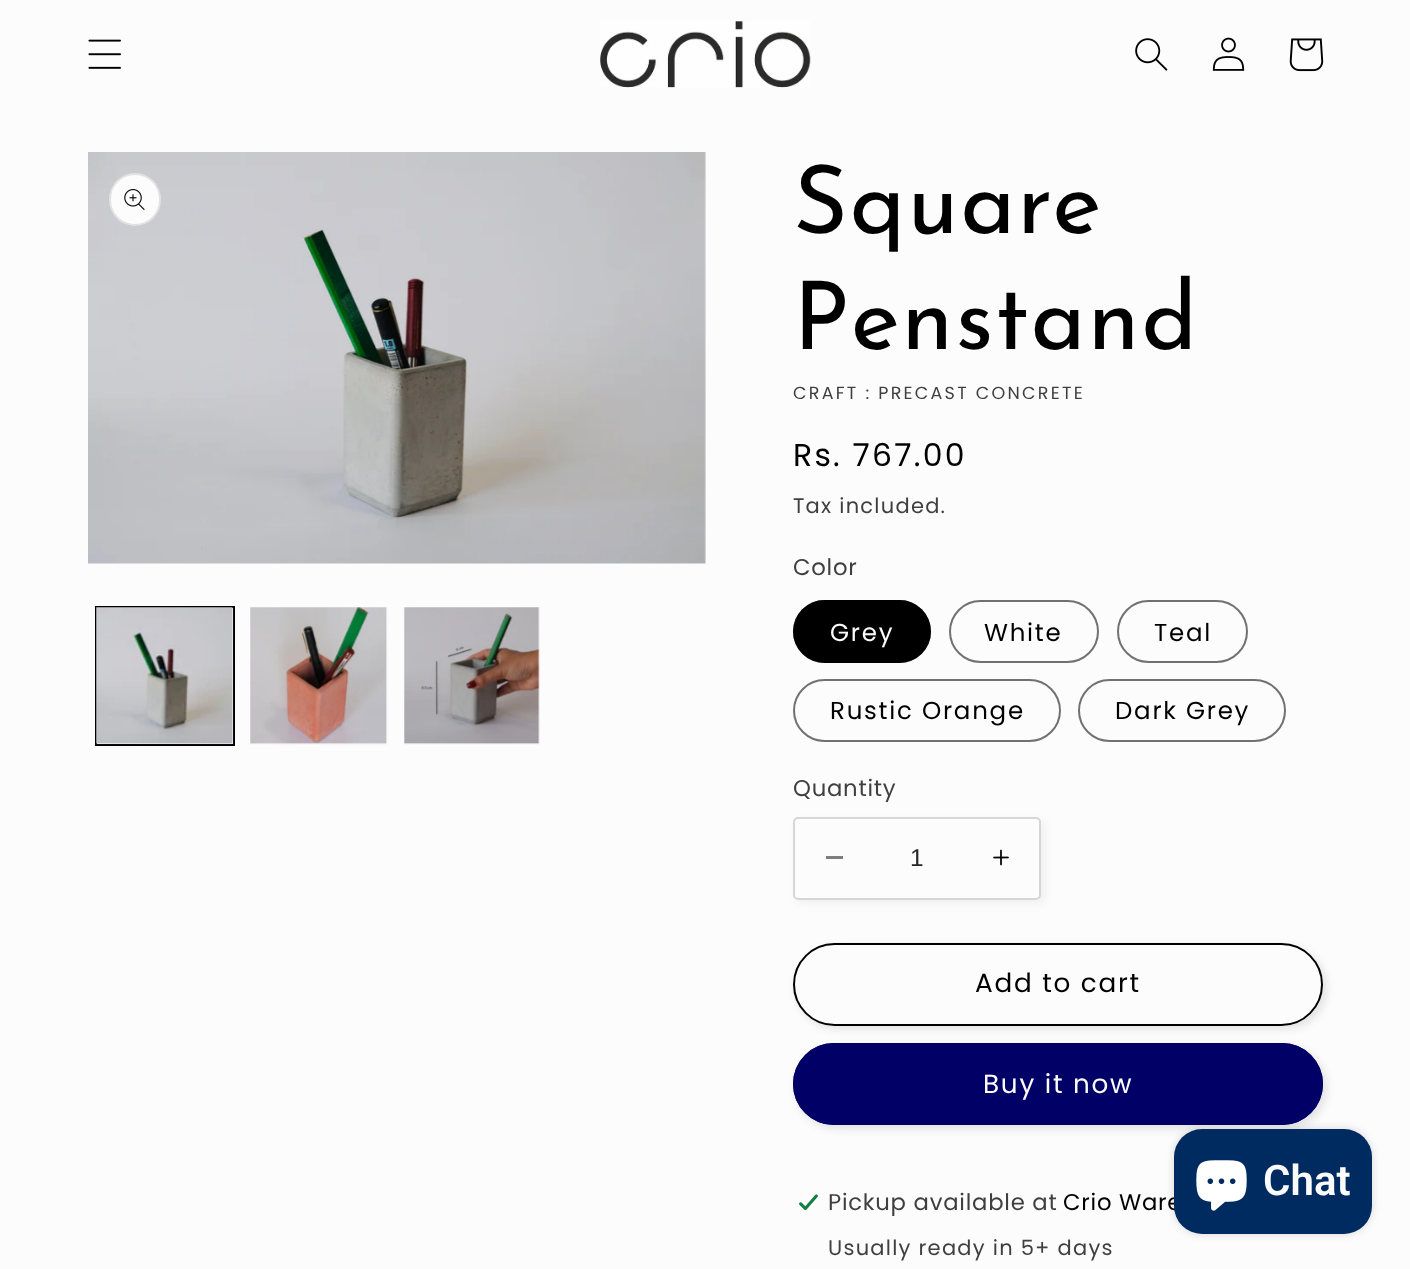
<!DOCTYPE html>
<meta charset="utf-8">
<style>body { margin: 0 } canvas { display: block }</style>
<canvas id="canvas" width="1410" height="1269"></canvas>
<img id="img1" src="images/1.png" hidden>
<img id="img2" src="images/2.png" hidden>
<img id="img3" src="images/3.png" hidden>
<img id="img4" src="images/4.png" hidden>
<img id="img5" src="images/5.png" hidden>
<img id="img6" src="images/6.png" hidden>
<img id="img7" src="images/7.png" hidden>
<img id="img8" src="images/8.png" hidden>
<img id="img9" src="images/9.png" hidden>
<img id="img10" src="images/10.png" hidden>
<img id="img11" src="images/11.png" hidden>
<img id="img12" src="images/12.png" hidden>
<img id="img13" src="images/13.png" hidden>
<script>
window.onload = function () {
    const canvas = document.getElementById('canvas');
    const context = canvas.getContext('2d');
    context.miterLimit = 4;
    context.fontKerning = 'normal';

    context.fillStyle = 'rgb(252, 252, 252)';
    context.fillRect(0, 0, 1410, 1269);
    context.drawImage(document.getElementById('img1'), 88, 39, 33, 30);
    context.drawImage(document.getElementById('img2'), 600, 21, 211, 67);
    context.drawImage(document.getElementById('img3'), 1135, 38, 33, 33);
    context.drawImage(document.getElementById('img4'), 1212, 37, 33, 34);
    context.drawImage(document.getElementById('img5'), 1289, 38, 35, 34);
    context.drawImage(document.getElementById('img6'), 88, 152, 618, 412);
    context.beginPath();
    context.roundRect(109, 173, 52, 53, 26);
    context.fill();
    context.beginPath();
    context.roundRect(110, 174, 50, 51, 25);
    context.strokeStyle = 'rgba(0, 0, 0, 0.1)';
    context.lineWidth = 2;
    context.stroke();
    context.drawImage(document.getElementById('img7'), 124, 189, 21, 21);
    context.strokeStyle = 'rgb(0, 0, 0)';
    context.strokeRect(96, 607, 138, 138);
    context.drawImage(document.getElementById('img8'), 96, 607, 138, 138);
    context.drawImage(document.getElementById('img9'), 250, 607, 138, 138);
    context.drawImage(document.getElementById('img10'), 404, 607, 136, 138);
    context.fillStyle = 'rgb(0, 0, 0)';
    context.beginPath();
    context.roundRect(793, 600, 138, 63, 31.5);
    context.fill();
    context.beginPath();
    context.roundRect(794, 601, 136, 61, 30.5);
    context.strokeStyle = 'rgba(0, 0, 0, 0.55)';
    context.stroke();
    context.beginPath();
    context.roundRect(950, 601, 148, 61, 30.5);
    context.strokeStyle = 'rgb(113, 113, 113)';
    context.stroke();
    context.beginPath();
    context.roundRect(1118, 601, 129, 61, 30.5);
    context.stroke();
    context.beginPath();
    context.roundRect(794, 680, 266, 61, 30.5);
    context.stroke();
    context.beginPath();
    context.roundRect(1079, 680, 206, 61, 30.5);
    context.stroke();
    context.fillStyle = 'rgba(0, 0, 0, 0.05)';
    context.filter = 'blur(4.5px)';
    context.beginPath();
    context.roundRect(796, 821, 249, 82, 5);
    context.fill();
    context.filter = 'none';
    context.fillStyle = 'rgb(252, 252, 252)';
    context.beginPath();
    context.roundRect(793, 817, 248, 83, 5);
    context.fill();
    context.fillStyle = 'rgb(126, 126, 126)';
    context.fillRect(826, 856, 17, 3);
    context.drawImage(document.getElementById('img11'), 993, 849, 16, 17);
    context.beginPath();
    context.roundRect(794, 818, 246, 81, 4);
    context.strokeStyle = 'rgba(0, 0, 0, 0.15)';
    context.stroke();
    context.fillStyle = 'rgba(0, 0, 0, 0.1)';
    context.filter = 'blur(4.5px)';
    context.beginPath();
    context.roundRect(796, 947, 531, 82, 41);
    context.fill();
    context.filter = 'none';
    context.fillStyle = 'rgb(252, 252, 252)';
    context.beginPath();
    context.roundRect(793, 943, 530, 83, 41.5);
    context.fill();
    context.beginPath();
    context.roundRect(794, 944, 528, 81, 40.5);
    context.strokeStyle = 'rgb(252, 252, 252)';
    context.stroke();
    context.beginPath();
    context.roundRect(794, 944, 528, 81, 40.5);
    context.strokeStyle = 'rgb(0, 0, 0)';
    context.stroke();
    context.fillStyle = 'rgba(0, 0, 0, 0.1)';
    context.filter = 'blur(4.5px)';
    context.beginPath();
    context.roundRect(796, 1047, 531, 82, 41);
    context.fill();
    context.filter = 'none';
    context.fillStyle = 'rgb(0, 0, 102)';
    context.beginPath();
    context.roundRect(793, 1043, 530, 82, 41);
    context.fill();
    context.beginPath();
    context.roundRect(794, 1044, 528, 80, 40);
    context.strokeStyle = 'rgb(0, 0, 102)';
    context.stroke();
    context.drawImage(document.getElementById('img12'), 799, 1194, 19, 17);
    context.fillStyle = 'rgba(0, 0, 0, 0.15)';
    context.filter = 'blur(4.5px)';
    context.beginPath();
    context.roundRect(1174, 1129, 198, 105, 28);
    context.fill();
    context.filter = 'none';
    context.letterSpacing = '1.5px';
    context.font = '94.5px Josefin Sans';
    context.fillStyle = 'rgb(0, 0, 0)';
    context.fillText('Square', 793, 233);
    context.fillText('Penstand', 793, 349);
    context.letterSpacing = '2.25px';
    context.font = '17.5px Poppins';
    context.fillStyle = 'rgb(63, 63, 63)';
    context.fillText('CRAFT : PRECAST CONCRETE', 793, 399);
    context.font = '31.5px Poppins';
    context.fillStyle = 'rgb(0, 0, 0)';
    context.fillText('Rs. 767.00', 793, 466);
    context.letterSpacing = '1.25px';
    context.font = '21px Poppins';
    context.fillStyle = 'rgb(63, 63, 63)';
    context.fillText('Tax included.', 793, 513);
    context.letterSpacing = '0.75px';
    context.font = '22.75px Poppins';
    context.fillText('Color', 793, 575);
    context.letterSpacing = '1.75px';
    context.font = '24.5px Poppins';
    context.fillStyle = 'rgb(252, 252, 252)';
    context.fillText('Grey', 830, 641);
    context.fillStyle = 'rgb(0, 0, 0)';
    context.fillText('White', 984, 641);
    context.fillText('Teal', 1154, 641);
    context.fillText('Rustic Orange', 830, 719);
    context.fillText('Dark Grey', 1115, 719);
    context.letterSpacing = '0.75px';
    context.font = '22.75px Poppins';
    context.fillStyle = 'rgb(63, 63, 63)';
    context.fillText('Quantity', 793, 796);
    context.letterSpacing = '0px';
    context.font = '24.5px Liberation Sans';
    context.fillStyle = 'rgb(38, 38, 38)';
    context.fillText('1', 910, 866);
    context.letterSpacing = '1.75px';
    context.font = '26.25px Poppins';
    context.fillStyle = 'rgb(0, 0, 0)';
    context.fillText('Add to cart', 975, 992);
    context.fillStyle = 'rgb(252, 252, 252)';
    context.fillText('Buy it now', 983, 1093);
    context.letterSpacing = '0.75px';
    context.font = '22.75px Poppins';
    context.fillStyle = 'rgb(63, 63, 63)';
    context.fillText('Pickup available at', 828, 1210);
    context.fillStyle = 'rgb(0, 0, 0)';
    context.fillText('Crio Ware', 1063, 1210);
    context.letterSpacing = '1.25px';
    context.font = '21px Poppins';
    context.fillStyle = 'rgb(63, 63, 63)';
    context.fillText('Usually ready in 5+ days', 828, 1255);
    context.fillStyle = 'rgb(0, 43, 96)';
    context.beginPath();
    context.roundRect(1174, 1129, 198, 105, 28);
    context.fill();
    context.drawImage(document.getElementById('img13'), 1196, 1160, 51, 51);
    context.letterSpacing = '0px';
    context.font = '600 42px Roboto';
    context.fillStyle = 'rgb(252, 252, 252)';
    context.fillText('Chat', 1263, 1195);
};
</script>
